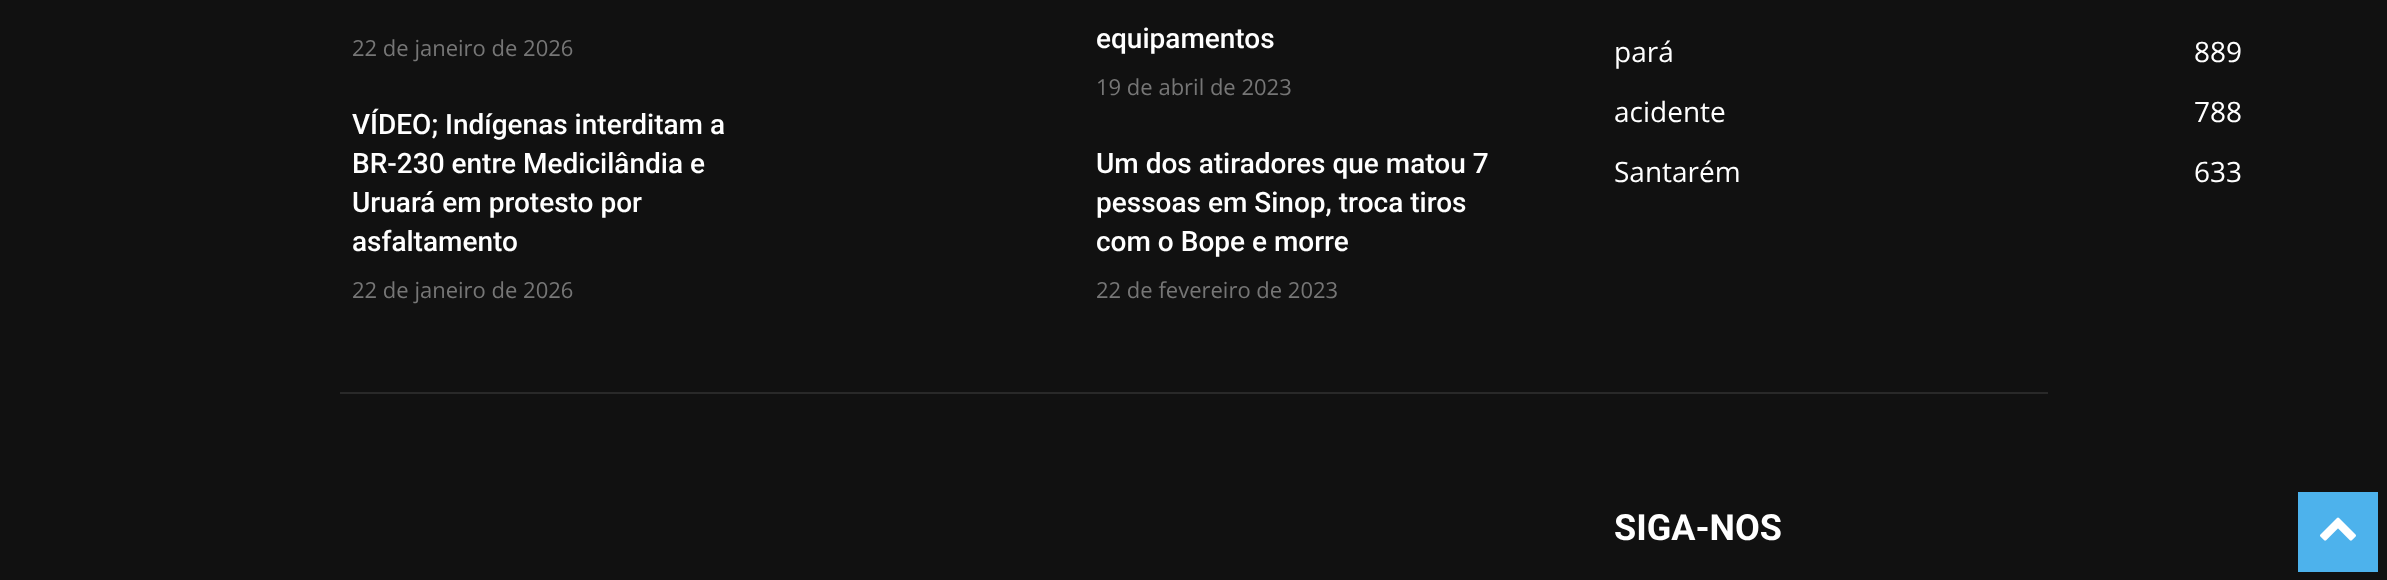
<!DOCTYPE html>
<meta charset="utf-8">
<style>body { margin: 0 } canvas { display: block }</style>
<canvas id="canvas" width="2387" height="580"></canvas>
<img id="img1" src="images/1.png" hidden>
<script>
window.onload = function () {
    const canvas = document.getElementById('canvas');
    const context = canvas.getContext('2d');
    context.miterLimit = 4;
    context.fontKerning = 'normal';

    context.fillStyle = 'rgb(17, 17, 17)';
    context.fillRect(0, 0, 2387, 580);
    context.fillStyle = 'rgb(41, 41, 41)';
    context.fillRect(340, 392, 1708, 2);
    context.fillStyle = 'rgb(77, 178, 236)';
    context.fillRect(2298, 492, 80, 80);
    context.drawImage(document.getElementById('img1'), 2320, 517, 36, 24);
    context.font = '22px Open Sans';
    context.fillStyle = 'rgb(118, 118, 118)';
    context.fillText('22 de janeiro de 2026', 352, 56);
    context.font = '500 28px Roboto';
    context.fillStyle = 'rgb(255, 255, 255)';
    context.fillText('VÍDEO; Indígenas interditam a', 352, 134);
    context.fillText('BR-230 entre Medicilândia e', 352, 173);
    context.fillText('Uruará em protesto por', 352, 212);
    context.fillText('asfaltamento', 352, 251);
    context.font = '22px Open Sans';
    context.fillStyle = 'rgb(118, 118, 118)';
    context.fillText('22 de janeiro de 2026', 352, 298);
    context.font = '500 28px Roboto';
    context.fillStyle = 'rgb(255, 255, 255)';
    context.fillText('equipamentos', 1096, 48);
    context.font = '22px Open Sans';
    context.fillStyle = 'rgb(118, 118, 118)';
    context.fillText('19 de abril de 2023', 1096, 95);
    context.font = '500 28px Roboto';
    context.fillStyle = 'rgb(255, 255, 255)';
    context.fillText('Um dos atiradores que matou 7', 1096, 173);
    context.fillText('pessoas em Sinop, troca tiros', 1096, 212);
    context.fillText('com o Bope e morre', 1096, 251);
    context.font = '22px Open Sans';
    context.fillStyle = 'rgb(118, 118, 118)';
    context.fillText('22 de fevereiro de 2023', 1096, 298);
    context.font = '28px Open Sans';
    context.fillStyle = 'rgb(255, 255, 255)';
    context.fillText('pará', 1614, 62);
    context.fillText('889', 2194, 62);
    context.fillText('acidente', 1614, 122);
    context.fillText('788', 2194, 122);
    context.fillText('Santarém', 1614, 182);
    context.fillText('633', 2194, 182);
    context.font = 'bold 36px Roboto';
    context.fillText('SIGA-NOS', 1614, 540);
};
</script>
